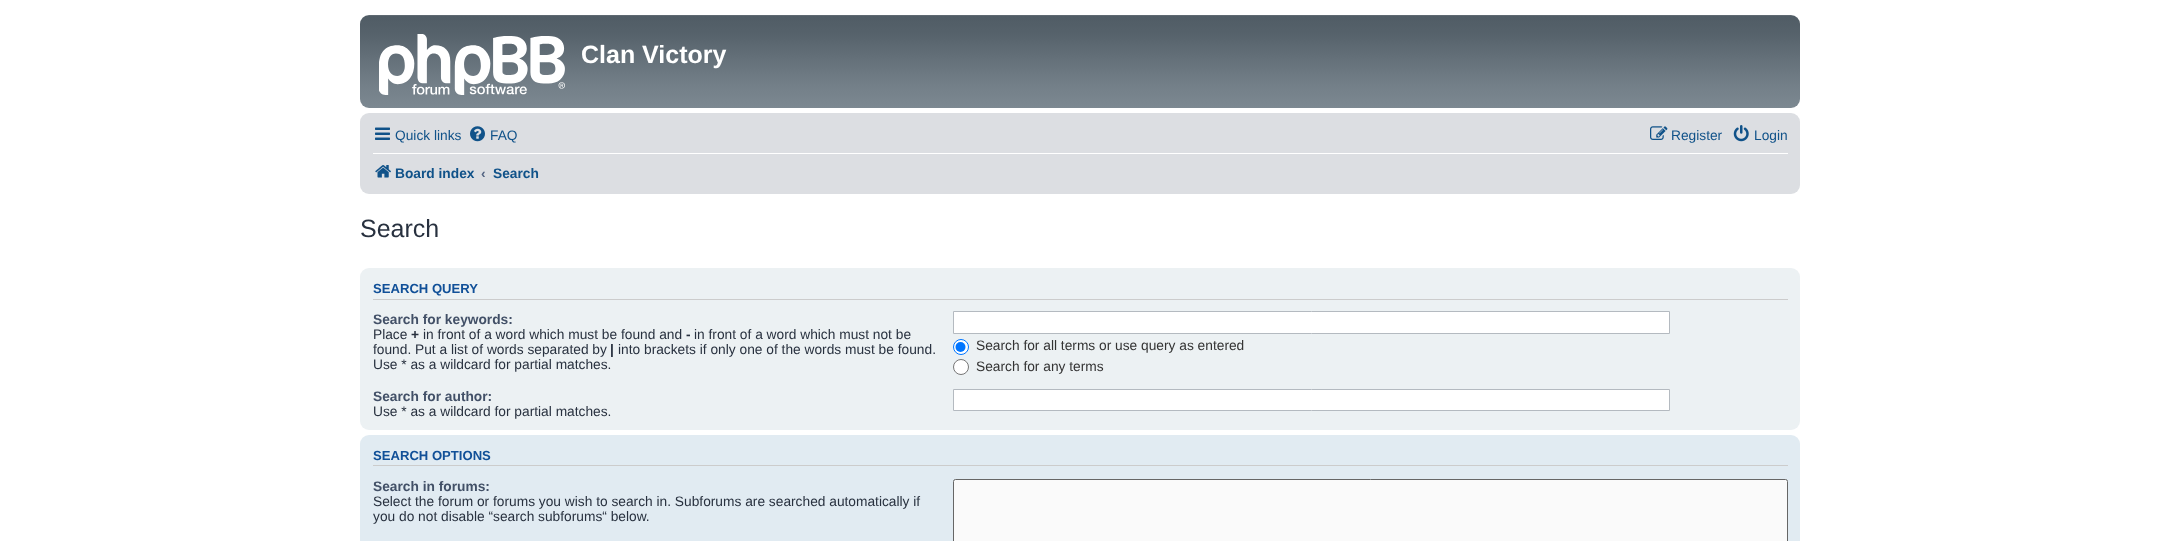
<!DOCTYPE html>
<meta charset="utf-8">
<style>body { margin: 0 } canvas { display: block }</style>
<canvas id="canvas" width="2159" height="541"></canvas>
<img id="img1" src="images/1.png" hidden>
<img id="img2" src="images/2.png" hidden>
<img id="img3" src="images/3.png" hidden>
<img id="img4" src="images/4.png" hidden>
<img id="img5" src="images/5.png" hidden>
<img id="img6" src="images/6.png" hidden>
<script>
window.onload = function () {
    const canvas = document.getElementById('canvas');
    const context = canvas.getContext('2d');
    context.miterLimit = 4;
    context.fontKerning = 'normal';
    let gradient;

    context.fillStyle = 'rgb(255, 255, 255)';
    context.fillRect(0, 0, 2159, 541);
    gradient = context.createLinearGradient(1080, 15, 1080, 108);
    gradient.addColorStop(0, 'rgb(110, 119, 127)');
    gradient.addColorStop(0.01, 'rgb(80, 92, 101)');
    gradient.addColorStop(0.2, 'rgb(86, 98, 107)');
    gradient.addColorStop(0.75, 'rgb(115, 127, 136)');
    gradient.addColorStop(1, 'rgb(124, 136, 145)');
    context.fillStyle = gradient;
    context.beginPath();
    context.roundRect(360, 15, 1440, 93, 9);
    context.fill();
    context.drawImage(document.getElementById('img1'), 379, 34, 186, 61);
    context.fillStyle = 'rgb(220, 222, 226)';
    context.beginPath();
    context.roundRect(360, 113, 1440, 81, 9);
    context.fill();
    context.drawImage(document.getElementById('img2'), 375, 127, 15, 13);
    context.drawImage(document.getElementById('img3'), 470, 126, 15, 16);
    context.drawImage(document.getElementById('img4'), 1650, 126, 18, 14);
    context.drawImage(document.getElementById('img5'), 1733, 125, 16, 17);
    context.fillStyle = 'rgb(255, 255, 255)';
    context.fillRect(373, 153, 1415, 1);
    context.drawImage(document.getElementById('img6'), 375, 165, 16, 13);
    context.fillStyle = 'rgb(236, 241, 243)';
    context.beginPath();
    context.roundRect(360, 268, 1440, 162, 9);
    context.fill();
    context.fillStyle = 'rgb(204, 204, 204)';
    context.fillRect(373, 299, 1415, 1);
    context.fillStyle = 'rgb(255, 255, 255)';
    context.beginPath();
    context.rect(953.5, 311.5, 716, 22);
    context.fill();
    context.strokeStyle = 'rgb(180, 186, 192)';
    context.stroke();
    context.beginPath();
    context.arc(961, 347, 7.5, 0, 2 * Math.PI);
    context.fill();
    context.strokeStyle = 'rgb(0, 117, 255)';
    context.stroke();
    context.fillStyle = 'rgb(0, 117, 255)';
    context.beginPath();
    context.arc(960.5, 347, 5, 0, 2 * Math.PI);
    context.fill();
    context.fillStyle = 'rgb(255, 255, 255)';
    context.beginPath();
    context.arc(961, 367, 7.5, 0, 2 * Math.PI);
    context.fill();
    context.strokeStyle = 'rgb(118, 118, 118)';
    context.stroke();
    context.beginPath();
    context.rect(953.5, 389.5, 716, 21);
    context.fill();
    context.strokeStyle = 'rgb(180, 186, 192)';
    context.stroke();
    context.fillStyle = 'rgb(225, 235, 242)';
    context.beginPath();
    context.roundRect(360, 435, 1440, 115, 9);
    context.fill();
    context.fillStyle = 'rgb(204, 204, 204)';
    context.fillRect(373, 465, 1415, 1);
    context.fillStyle = 'rgb(250, 250, 250)';
    context.beginPath();
    context.roundRect(953.5, 479.5, 834, 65, 2);
    context.fill();
    context.strokeStyle = 'rgb(102, 102, 102)';
    context.stroke();
    context.font = 'bold 25px Liberation Sans';
    context.fillStyle = 'rgb(255, 255, 255)';
    context.fillText('Clan Victory', 581, 63);
    context.font = '13.75px Liberation Sans';
    context.fillStyle = 'rgb(16, 82, 137)';
    context.fillText('Quick links', 395, 140);
    context.fillText('FAQ', 490, 140);
    context.fillText('Register', 1671, 140);
    context.fillText('Login', 1754, 140);
    context.font = 'bold 13.75px Liberation Sans';
    context.fillText('Board index', 395, 178);
    context.fillStyle = 'rgb(83, 100, 130)';
    context.fillText('‹', 481, 178);
    context.fillStyle = 'rgb(16, 82, 137)';
    context.fillText('Search', 493, 178);
    context.font = '25px Liberation Sans';
    context.fillStyle = 'rgb(40, 49, 63)';
    context.fillText('Search', 360, 237);
    context.font = 'bold 13.1px Liberation Sans';
    context.fillStyle = 'rgb(17, 80, 152)';
    context.fillText('SEARCH QUERY', 373, 293);
    context.font = 'bold 13.75px Liberation Sans';
    context.fillStyle = 'rgb(66, 80, 103)';
    context.fillText('Search for keywords:', 373, 324);
    context.font = '13.75px Liberation Sans';
    context.fillStyle = 'rgb(40, 49, 63)';
    context.fillText('Place', 373, 339);
    context.font = 'bold 13.75px Liberation Sans';
    context.fillText('+', 411, 339);
    context.font = '13.75px Liberation Sans';
    context.fillText('in front of a word which must be found and', 423, 339);
    context.font = 'bold 13.75px Liberation Sans';
    context.fillText('-', 686, 339);
    context.font = '13.75px Liberation Sans';
    context.fillText('in front of a word which must not be', 694, 339);
    context.fillText('found. Put a list of words separated by', 373, 354);
    context.font = 'bold 13.75px Liberation Sans';
    context.fillText('|', 610, 354);
    context.font = '13.75px Liberation Sans';
    context.fillText('into brackets if only one of the words must be found.', 618, 354);
    context.fillText('Use * as a wildcard for partial matches.', 373, 369);
    context.fillStyle = 'rgb(51, 51, 51)';
    context.fillText('Search for all terms or use query as entered', 976, 350);
    context.fillText('Search for any terms', 976, 371);
    context.font = 'bold 13.75px Liberation Sans';
    context.fillStyle = 'rgb(66, 80, 103)';
    context.fillText('Search for author:', 373, 401);
    context.font = '13.75px Liberation Sans';
    context.fillStyle = 'rgb(40, 49, 63)';
    context.fillText('Use * as a wildcard for partial matches.', 373, 416);
    context.font = 'bold 13.1px Liberation Sans';
    context.fillStyle = 'rgb(17, 80, 152)';
    context.fillText('SEARCH OPTIONS', 373, 460);
    context.font = 'bold 13.75px Liberation Sans';
    context.fillStyle = 'rgb(66, 80, 103)';
    context.fillText('Search in forums:', 373, 491);
    context.font = '13.75px Liberation Sans';
    context.fillStyle = 'rgb(40, 49, 63)';
    context.fillText('Select the forum or forums you wish to search in. Subforums are searched automatically if', 373, 506);
    context.fillText('you do not disable “search subforums“ below.', 373, 521);
};
</script>
